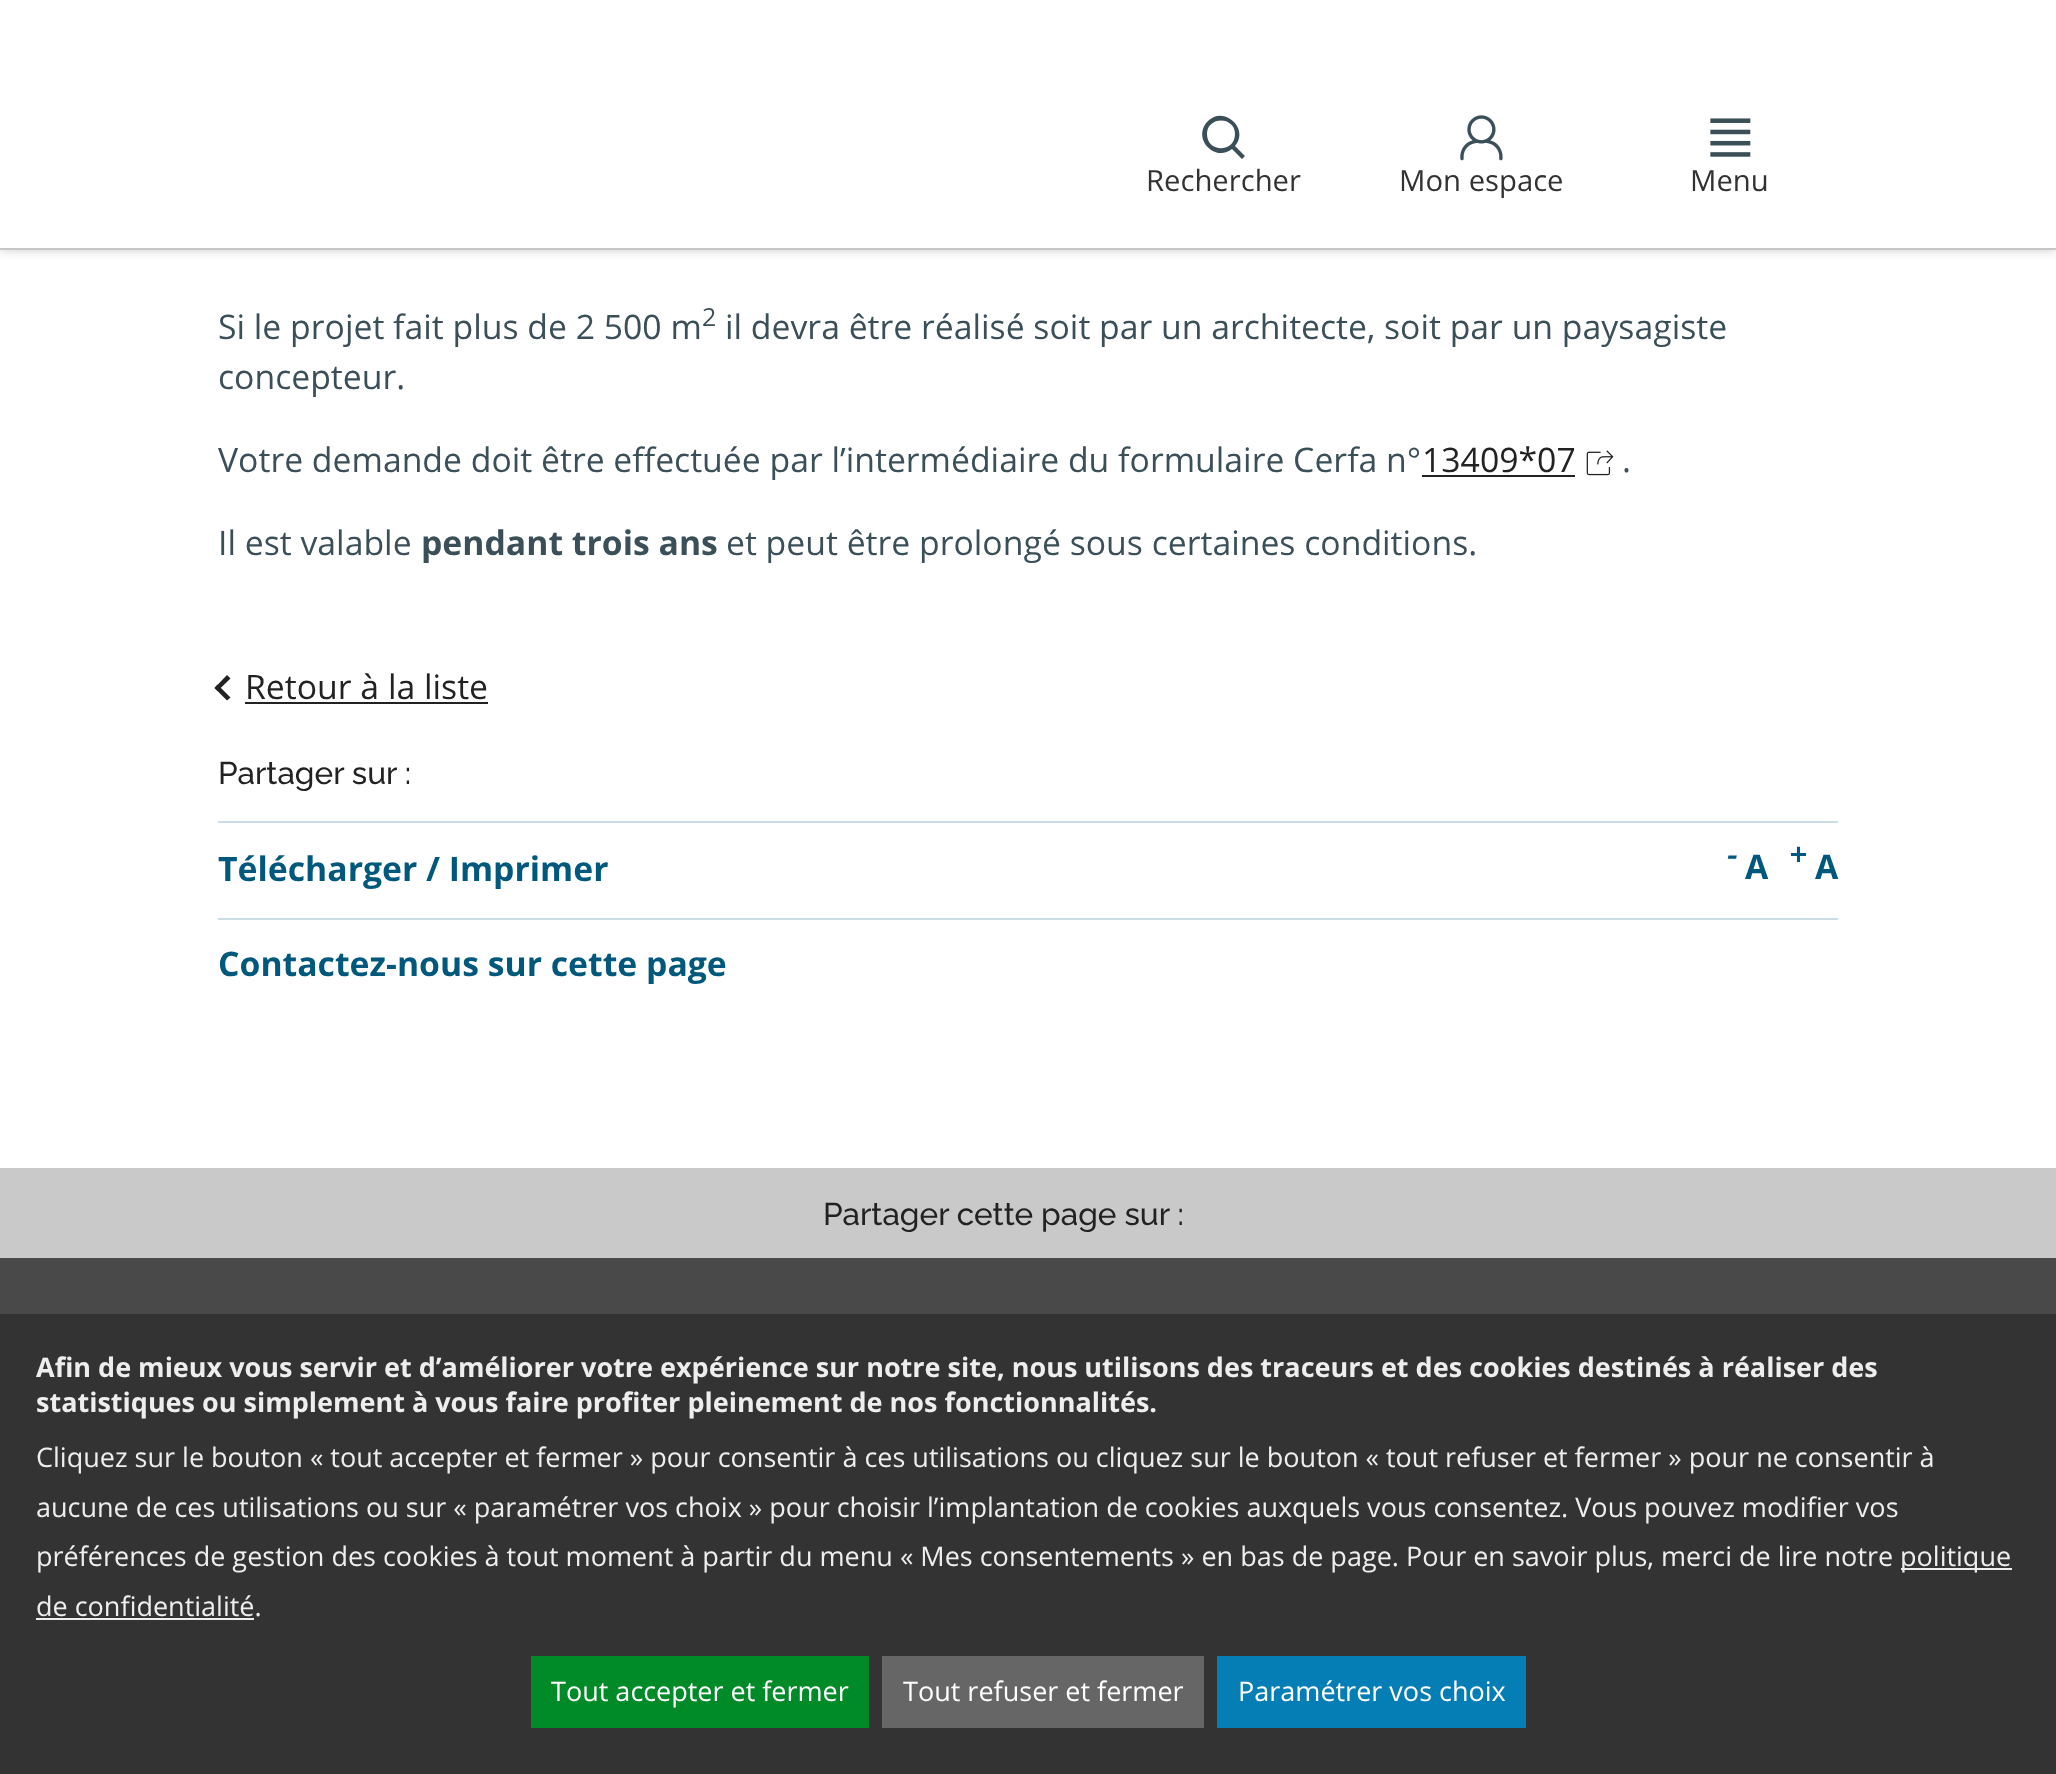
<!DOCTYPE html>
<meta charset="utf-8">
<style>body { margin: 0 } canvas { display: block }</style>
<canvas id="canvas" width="2056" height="1774"></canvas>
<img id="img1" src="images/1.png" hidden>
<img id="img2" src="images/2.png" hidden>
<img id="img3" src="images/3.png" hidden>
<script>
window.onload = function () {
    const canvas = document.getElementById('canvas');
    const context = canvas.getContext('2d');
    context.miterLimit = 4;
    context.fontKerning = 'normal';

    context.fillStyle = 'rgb(255, 255, 255)';
    context.fillRect(0, 0, 2056, 1774);
    context.fillStyle = 'rgba(0, 0, 0, 0.2)';
    context.filter = 'blur(5.5px)';
    context.beginPath();
    context.rect(0, 0, 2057, 250);
    context.fill();
    context.filter = 'none';
    context.fillStyle = 'rgb(255, 255, 255)';
    context.fillRect(0, 0, 2056, 248);
    context.fillStyle = 'rgb(198, 198, 198)';
    context.fillRect(0, 248, 2056, 2);
    context.fillStyle = 'rgb(59, 79, 88)';
    context.beginPath();
    context.moveTo(1242, 159);
    context.lineTo(1232, 149);
    context.bezierCurveTo(1215, 163, 1191, 138, 1208, 121);
    context.bezierCurveTo(1224, 105, 1250, 129, 1235, 146);
    context.lineTo(1245, 156);
    context.closePath();
    context.moveTo(1235, 134);
    context.bezierCurveTo(1235, 116, 1207, 116, 1207, 134);
    context.bezierCurveTo(1207, 153, 1235, 153, 1235, 134);
    context.closePath();
    context.fill();
    context.drawImage(document.getElementById('img1'), 1460, 115, 43, 46);
    context.drawImage(document.getElementById('img2'), 1710, 118, 41, 39);
    context.fillStyle = 'rgb(34, 34, 34)';
    context.fillRect(1422, 475, 153, 2);
    context.drawImage(document.getElementById('img3'), 1586, 450, 28, 26);
    context.beginPath();
    context.moveTo(230.5, 697.5);
    context.lineTo(227, 700.5);
    context.lineTo(214.5, 688);
    context.lineTo(217.5, 684.5);
    context.closePath();
    context.fill();
    context.beginPath();
    context.moveTo(230.5, 678.5);
    context.lineTo(217.5, 691);
    context.lineTo(214.5, 688);
    context.lineTo(227, 675);
    context.closePath();
    context.fill();
    context.fillRect(245, 702, 243, 2);
    context.fillStyle = 'rgb(204, 222, 229)';
    context.fillRect(218, 821, 1620, 2);
    context.fillRect(218, 918, 1620, 2);
    context.fillStyle = 'rgb(201, 201, 201)';
    context.fillRect(0, 1168, 2056, 90);
    context.fillStyle = 'rgb(73, 73, 73)';
    context.fillRect(0, 1258, 2056, 56);
    context.fillStyle = 'rgb(51, 51, 51)';
    context.fillRect(0, 1314, 2056, 460);
    context.fillStyle = 'rgb(238, 238, 238)';
    context.fillRect(1901, 1568, 111, 2);
    context.fillRect(36, 1618, 218, 2);
    context.fillStyle = 'rgb(0, 138, 40)';
    context.fillRect(531, 1656, 338, 72);
    context.fillStyle = 'rgb(102, 102, 102)';
    context.fillRect(882, 1656, 322, 72);
    context.fillStyle = 'rgb(5, 126, 182)';
    context.fillRect(1217, 1656, 309, 72);
    context.font = '29.25px Open Sans';
    context.fillStyle = 'rgb(50, 50, 50)';
    context.fillText('Rechercher', 1146, 191);
    context.fillText('Mon espace', 1399, 191);
    context.fillText('Menu', 1690, 191);
    context.font = '33.75px Open Sans';
    context.fillStyle = 'rgb(59, 79, 88)';
    context.fillText('Si le projet fait plus de 2 500 m', 218, 339);
    context.font = '25px Open Sans';
    context.fillText('2', 702, 326);
    context.font = '33.75px Open Sans';
    context.fillText('il devra être réalisé soit par un architecte, soit par un paysagiste', 725, 339);
    context.fillText('concepteur.', 218, 389);
    context.fillText('Votre demande doit être effectuée par l’intermédiaire du formulaire Cerfa n°', 218, 472);
    context.fillStyle = 'rgb(34, 34, 34)';
    context.fillText('13409*07', 1422, 472);
    context.fillStyle = 'rgb(59, 79, 88)';
    context.fillText('.', 1622, 472);
    context.fillText('Il est valable', 218, 555);
    context.font = 'bold 33.75px Open Sans';
    context.fillText('pendant trois ans', 421, 555);
    context.font = '33.75px Open Sans';
    context.fillText('et peut être prolongé sous certaines conditions.', 726, 555);
    context.fillStyle = 'rgb(34, 34, 34)';
    context.fillText('Retour à la liste', 245, 699);
    context.font = '100 31.5px Raleway';
    context.fillText('Partager sur :', 218, 784);
    context.font = 'bold 33.75px Open Sans';
    context.fillStyle = 'rgb(0, 88, 124)';
    context.fillText('Télécharger / Imprimer', 218, 881);
    context.font = 'italic bold 31.5px Open Sans';
    context.fillText('-', 1727, 866);
    context.font = 'bold 33.75px Open Sans';
    context.fillText('A', 1745, 879);
    context.font = 'italic bold 31.5px Open Sans';
    context.fillText('+', 1789, 866);
    context.font = 'bold 33.75px Open Sans';
    context.fillText('A', 1815, 879);
    context.fillText('Contactez-nous sur cette page', 218, 976);
    context.font = '100 31.5px Raleway';
    context.fillStyle = 'rgb(34, 34, 34)';
    context.fillText('Partager cette page sur :', 823, 1225);
    context.font = 'bold 27px Open Sans';
    context.fillStyle = 'rgb(238, 238, 238)';
    context.fillText('Afin de mieux vous servir et d’améliorer votre expérience sur notre site, nous utilisons des traceurs et des cookies destinés à réaliser des', 36, 1377);
    context.fillText('statistiques ou simplement à vous faire profiter pleinement de nos fonctionnalités.', 36, 1412);
    context.font = '27px Open Sans';
    context.fillText('Cliquez sur le bouton « tout accepter et fermer » pour consentir à ces utilisations ou cliquez sur le bouton « tout refuser et fermer » pour ne consentir à', 36, 1467);
    context.fillText('aucune de ces utilisations ou sur « paramétrer vos choix » pour choisir l’implantation de cookies auxquels vous consentez. Vous pouvez modifier vos', 36, 1517);
    context.fillText('préférences de gestion des cookies à tout moment à partir du menu « Mes consentements » en bas de page. Pour en savoir plus, merci de lire notre', 36, 1566);
    context.fillText('politique', 1900, 1566);
    context.fillText('de confidentialité.', 36, 1616);
    context.fillStyle = 'rgb(255, 255, 255)';
    context.fillText('Tout accepter et fermer', 551, 1701);
    context.fillText('Tout refuser et fermer', 903, 1701);
    context.fillText('Paramétrer vos choix', 1238, 1701);
};
</script>
